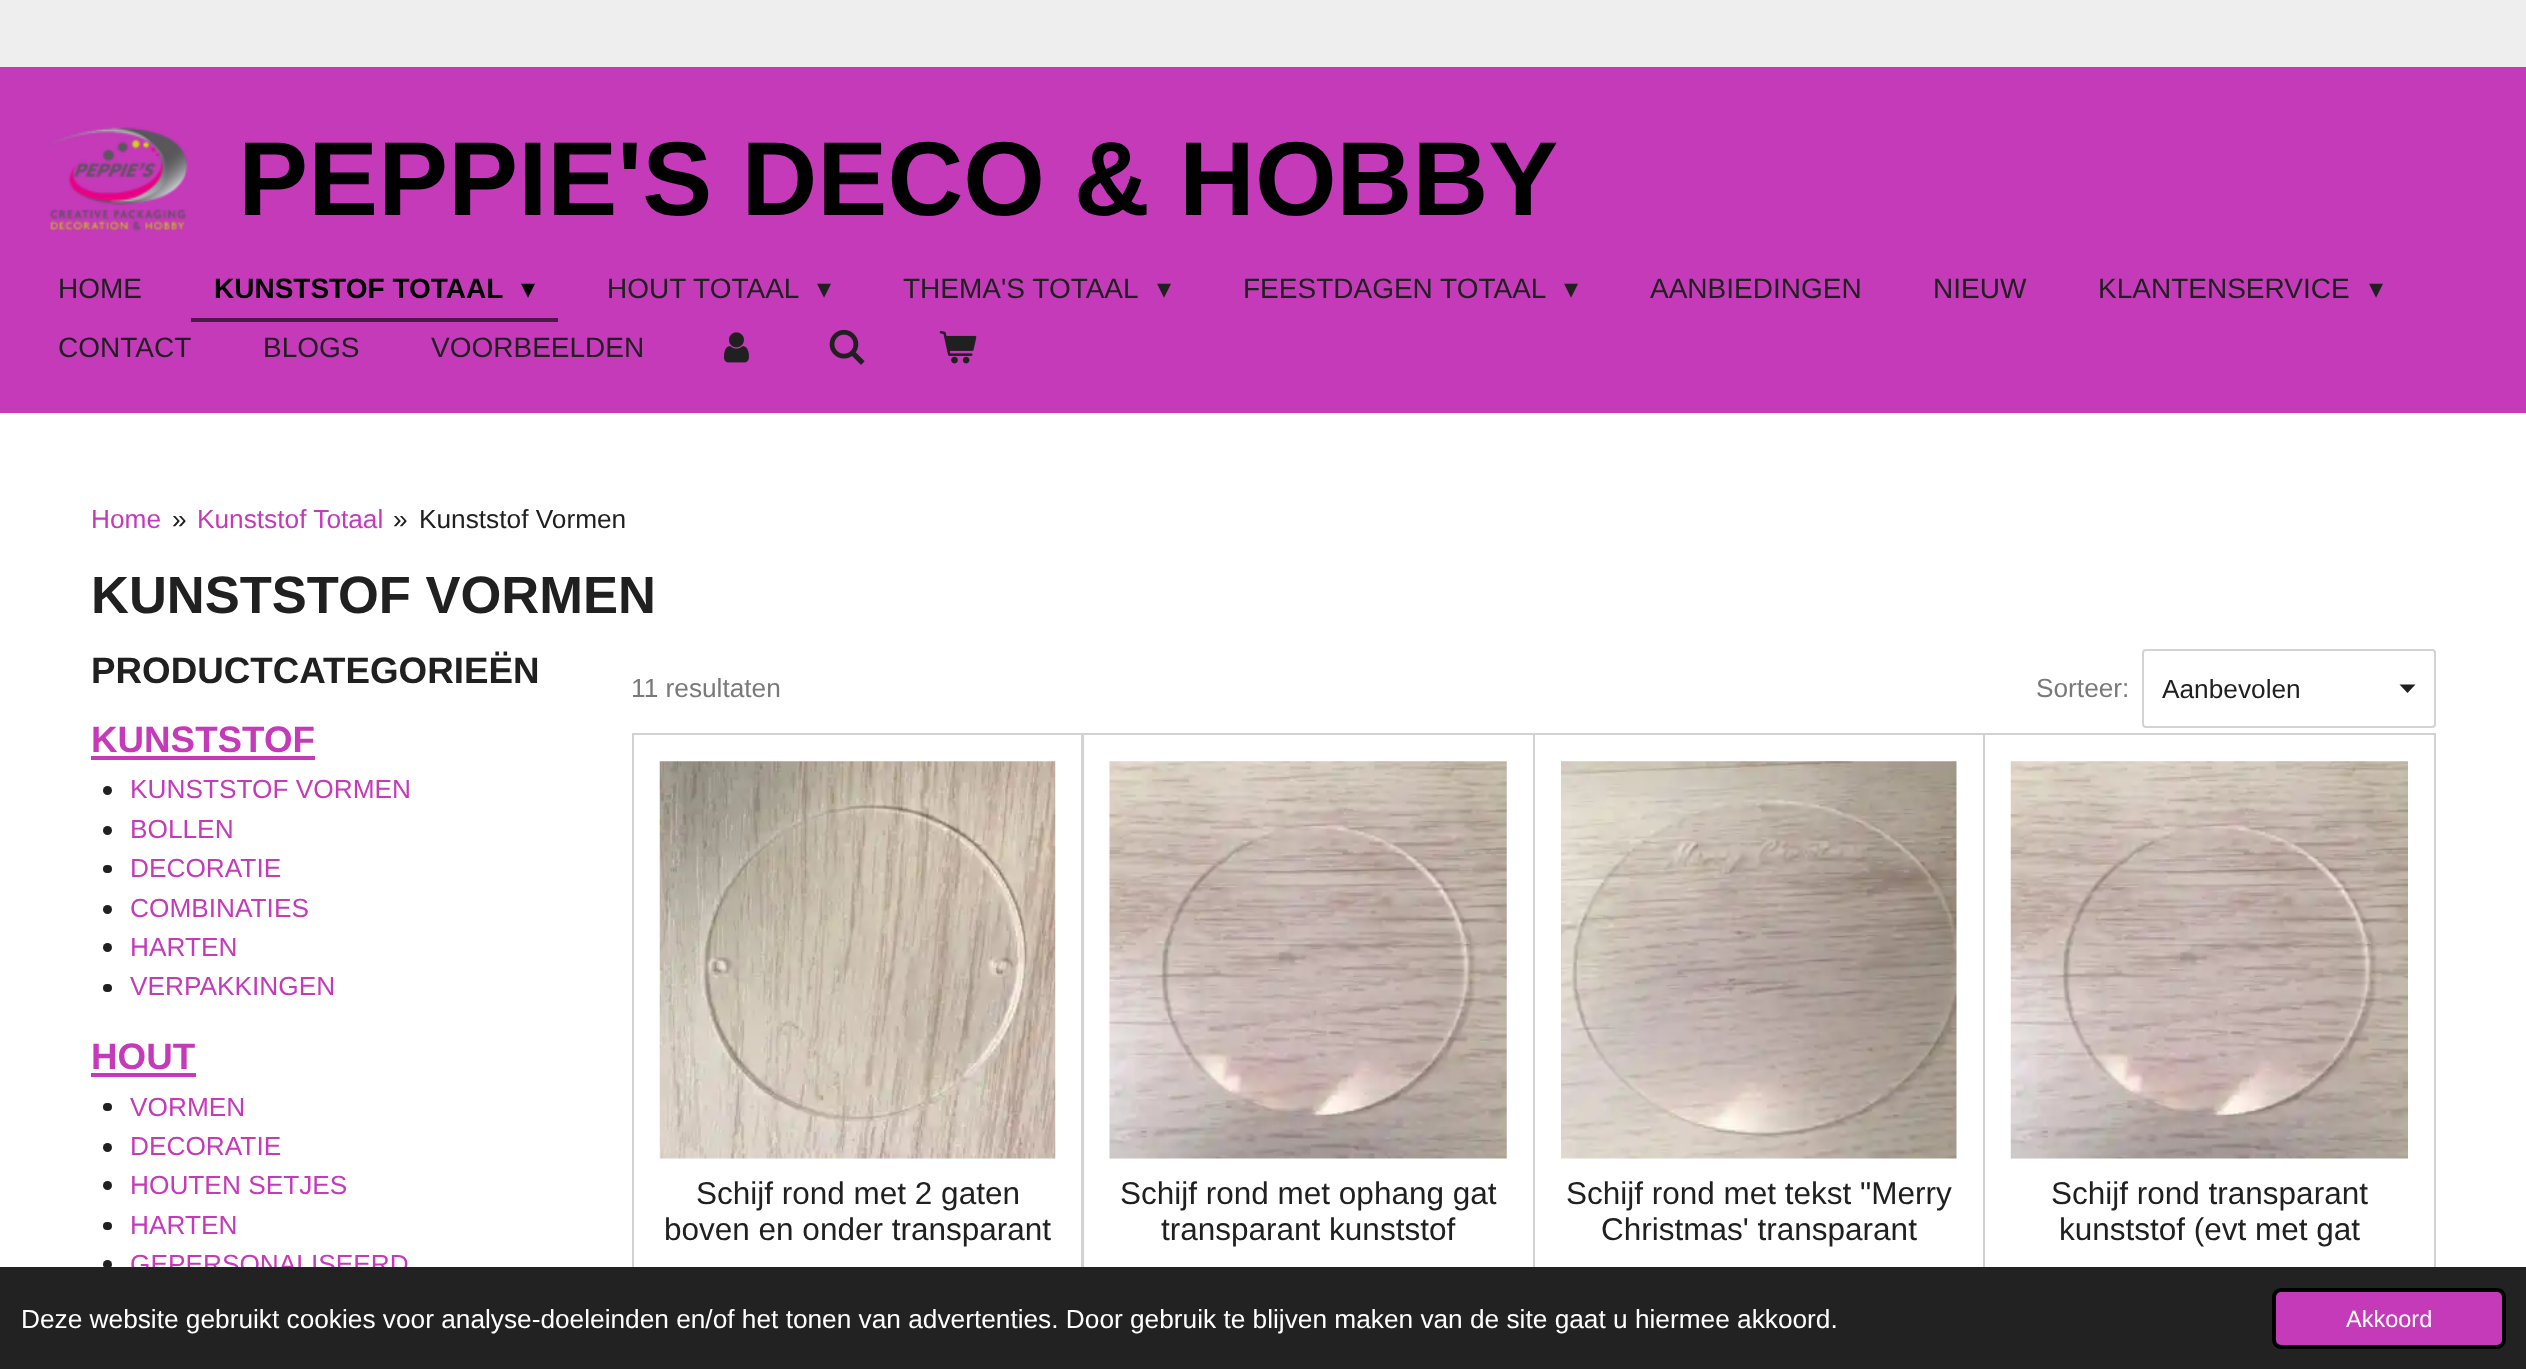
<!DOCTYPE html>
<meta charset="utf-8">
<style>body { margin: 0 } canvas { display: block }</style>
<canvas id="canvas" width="2526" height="1369"></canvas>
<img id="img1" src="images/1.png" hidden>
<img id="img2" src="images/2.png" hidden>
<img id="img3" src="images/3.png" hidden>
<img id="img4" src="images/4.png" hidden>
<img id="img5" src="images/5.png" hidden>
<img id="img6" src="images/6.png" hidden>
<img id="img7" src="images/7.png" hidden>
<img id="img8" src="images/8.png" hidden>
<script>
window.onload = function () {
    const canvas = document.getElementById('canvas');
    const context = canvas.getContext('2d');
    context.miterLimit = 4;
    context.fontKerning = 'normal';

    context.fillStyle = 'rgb(238, 238, 238)';
    context.fillRect(0, 0, 2526, 1369);
    context.fillStyle = 'rgb(196, 58, 185)';
    context.fillRect(0, 67, 2526, 346);
    context.drawImage(document.getElementById('img1'), 47, 127, 141, 105);
    context.fillStyle = 'rgb(78, 23, 74)';
    context.fillRect(191, 318, 367, 4);
    context.drawImage(document.getElementById('img2'), 723, 332, 26, 31);
    context.drawImage(document.getElementById('img3'), 829, 329, 36, 36);
    context.drawImage(document.getElementById('img4'), 939, 331, 38, 33);
    context.fillStyle = 'rgb(255, 255, 255)';
    context.fillRect(0, 413, 2526, 854);
    context.fillStyle = 'rgb(196, 58, 185)';
    context.fillRect(91, 756, 224, 4);
    context.fillStyle = 'rgb(32, 32, 32)';
    context.beginPath();
    context.arc(107.5, 790.5, 4.5, 0, 2 * Math.PI);
    context.fill();
    context.beginPath();
    context.arc(107.5, 830.5, 4.5, 0, 2 * Math.PI);
    context.fill();
    context.beginPath();
    context.roundRect(103, 865, 9, 8, 4);
    context.fill();
    context.beginPath();
    context.arc(107.5, 909.5, 4.5, 0, 2 * Math.PI);
    context.fill();
    context.beginPath();
    context.arc(107.5, 947.5, 4.5, 0, 2 * Math.PI);
    context.fill();
    context.beginPath();
    context.roundRect(103, 984, 9, 8, 4);
    context.fill();
    context.fillStyle = 'rgb(196, 58, 185)';
    context.fillRect(91, 1073, 105, 4);
    context.fillStyle = 'rgb(32, 32, 32)';
    context.beginPath();
    context.roundRect(103, 1103, 9, 8, 4);
    context.fill();
    context.beginPath();
    context.arc(107.5, 1147.5, 4.5, 0, 2 * Math.PI);
    context.fill();
    context.beginPath();
    context.arc(107.5, 1185.5, 4.5, 0, 2 * Math.PI);
    context.fill();
    context.beginPath();
    context.roundRect(103, 1222, 9, 8, 4);
    context.fill();
    context.beginPath();
    context.arc(107.5, 1264.5, 4.5, 0, 2 * Math.PI);
    context.fill();
    context.beginPath();
    context.moveTo(2407.5, 693);
    context.lineTo(2399.5, 684.5);
    context.lineTo(2415.5, 684.5);
    context.closePath();
    context.fill();
    context.beginPath();
    context.roundRect(2143, 650, 292, 77, 3);
    context.strokeStyle = 'rgb(211, 211, 211)';
    context.lineWidth = 2;
    context.stroke();
    context.strokeStyle = 'rgb(210, 210, 210)';
    context.strokeRect(633, 734, 449, 625);
    context.drawImage(document.getElementById('img5'), 659, 761, 397, 398);
    context.strokeRect(1083, 734, 451, 625);
    context.drawImage(document.getElementById('img6'), 1109, 761, 398, 398);
    context.strokeRect(1534, 734, 450, 625);
    context.drawImage(document.getElementById('img7'), 1561, 761, 396, 398);
    context.strokeRect(1984, 734, 451, 625);
    context.drawImage(document.getElementById('img8'), 2010, 761, 398, 398);
    context.font = 'bold 105px Liberation Sans';
    context.fillStyle = 'rgb(0, 0, 0)';
    context.fillText('PEPPIE\'S DECO & HOBBY', 238, 215);
    context.font = '28px Liberation Sans';
    context.fillStyle = 'rgb(32, 32, 32)';
    context.fillText('HOME', 58, 298);
    context.font = 'bold 28px Liberation Sans';
    context.fillStyle = 'rgb(0, 0, 0)';
    context.fillText('KUNSTSTOF TOTAAL', 214, 298);
    context.font = '28px DejaVu Sans';
    context.fillText('▾', 521, 298);
    context.font = '28px Liberation Sans';
    context.fillStyle = 'rgb(32, 32, 32)';
    context.fillText('HOUT TOTAAL', 607, 298);
    context.font = '28px DejaVu Sans';
    context.fillText('▾', 817, 298);
    context.font = '28px Liberation Sans';
    context.fillText('THEMA\'S TOTAAL', 903, 298);
    context.font = '28px DejaVu Sans';
    context.fillText('▾', 1157, 298);
    context.font = '28px Liberation Sans';
    context.fillText('FEESTDAGEN TOTAAL', 1243, 298);
    context.font = '28px DejaVu Sans';
    context.fillText('▾', 1564, 298);
    context.font = '28px Liberation Sans';
    context.fillText('AANBIEDINGEN', 1650, 298);
    context.fillText('NIEUW', 1933, 298);
    context.fillText('KLANTENSERVICE', 2098, 298);
    context.font = '28px DejaVu Sans';
    context.fillText('▾', 2369, 298);
    context.font = '28px Liberation Sans';
    context.fillText('CONTACT', 58, 357);
    context.fillText('BLOGS', 263, 357);
    context.fillText('VOORBEELDEN', 431, 357);
    context.font = '26.25px Liberation Sans';
    context.fillStyle = 'rgb(196, 58, 185)';
    context.fillText('Home', 91, 528);
    context.fillStyle = 'rgb(32, 32, 32)';
    context.fillText('»', 172, 528);
    context.fillStyle = 'rgb(196, 58, 185)';
    context.fillText('Kunststof Totaal', 197, 528);
    context.fillStyle = 'rgb(32, 32, 32)';
    context.fillText('»', 393, 528);
    context.fillText('Kunststof Vormen', 419, 528);
    context.font = 'bold 52.5px Liberation Sans';
    context.fillText('KUNSTSTOF VORMEN', 91, 613);
    context.font = 'bold 36.75px Liberation Sans';
    context.fillText('PRODUCTCATEGORIEËN', 91, 683);
    context.fillStyle = 'rgb(196, 58, 185)';
    context.fillText('KUNSTSTOF', 91, 752);
    context.font = '26.25px Liberation Sans';
    context.fillText('KUNSTSTOF VORMEN', 130, 798);
    context.fillText('BOLLEN', 130, 838);
    context.fillText('DECORATIE', 130, 877);
    context.fillText('COMBINATIES', 130, 917);
    context.fillText('HARTEN', 130, 956);
    context.fillText('VERPAKKINGEN', 130, 995);
    context.font = 'bold 36.75px Liberation Sans';
    context.fillText('HOUT', 91, 1069);
    context.font = '26.25px Liberation Sans';
    context.fillText('VORMEN', 130, 1116);
    context.fillText('DECORATIE', 130, 1155);
    context.fillText('HOUTEN SETJES', 130, 1194);
    context.fillText('HARTEN', 130, 1234);
    context.fillText('GEPERSONALISEERD', 130, 1273);
    context.fillStyle = 'rgb(121, 121, 121)';
    context.fillText('11 resultaten', 631, 697);
    context.fillText('Sorteer:', 2036, 697);
    context.fillStyle = 'rgb(32, 32, 32)';
    context.fillText('Aanbevolen', 2162, 698);
    context.font = '31.5px Liberation Sans';
    context.fillText('Schijf rond met 2 gaten', 696, 1204);
    context.fillText('boven en onder transparant', 664, 1240);
    context.fillText('Schijf rond met ophang gat', 1120, 1204);
    context.fillText('transparant kunststof', 1161, 1240);
    context.fillText('Schijf rond met tekst "Merry', 1566, 1204);
    context.fillText('Christmas\' transparant', 1601, 1240);
    context.fillText('Schijf rond transparant', 2051, 1204);
    context.fillText('kunststof (evt met gat', 2059, 1240);
    context.fillStyle = 'rgb(34, 34, 34)';
    context.fillRect(0, 1267, 2526, 102);
    context.font = '26.25px Liberation Sans';
    context.fillStyle = 'rgb(255, 255, 255)';
    context.fillText('Deze website gebruikt cookies voor analyse-doeleinden en/of het tonen van advertenties. Door gebruik te blijven maken van de site gaat u hiermee akkoord.', 21, 1328);
    context.fillStyle = 'rgb(196, 58, 185)';
    context.beginPath();
    context.roundRect(2274, 1290, 230, 57, 7);
    context.fill();
    context.strokeStyle = 'rgb(0, 0, 0)';
    context.lineWidth = 4;
    context.stroke();
    context.font = '23.5px Liberation Sans';
    context.fillStyle = 'rgb(255, 255, 255)';
    context.fillText('Akkoord', 2346, 1327);
};
</script>
